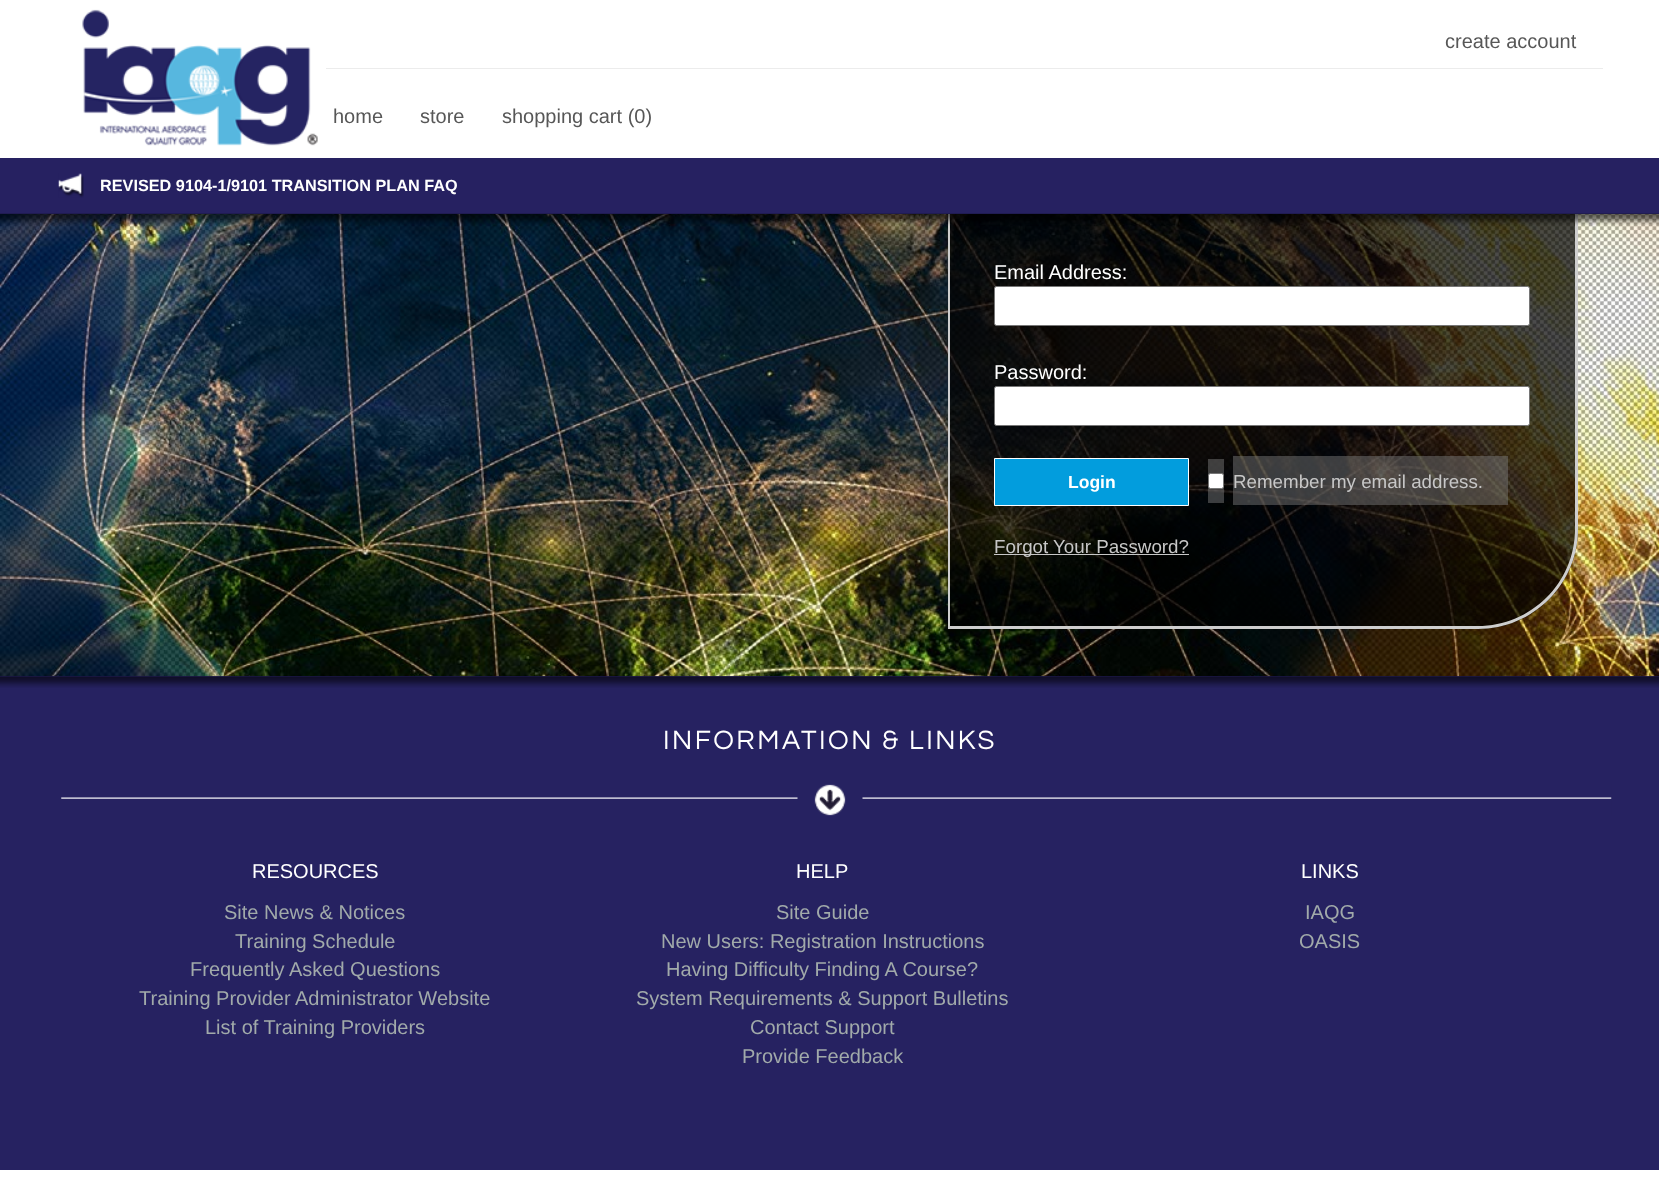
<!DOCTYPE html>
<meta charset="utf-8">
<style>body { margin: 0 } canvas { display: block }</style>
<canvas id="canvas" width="1659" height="1201"></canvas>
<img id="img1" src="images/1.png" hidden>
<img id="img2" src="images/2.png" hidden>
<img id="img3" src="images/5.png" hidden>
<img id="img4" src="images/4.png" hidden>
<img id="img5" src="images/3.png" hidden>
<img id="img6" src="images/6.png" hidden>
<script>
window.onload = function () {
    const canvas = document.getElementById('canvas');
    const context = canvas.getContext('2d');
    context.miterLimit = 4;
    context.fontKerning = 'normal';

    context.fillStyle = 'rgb(255, 255, 255)';
    context.fillRect(0, 0, 1659, 1201);
    context.drawImage(document.getElementById('img1'), 82, 9, 236, 137);
    context.fillStyle = 'rgb(236, 236, 236)';
    context.fillRect(326, 68, 1277, 1);
    context.fillStyle = 'rgb(38, 33, 97)';
    context.fillRect(0, 158, 1659, 56);
    context.drawImage(document.getElementById('img2'), 58, 173, 26, 25);
    context.fillStyle = 'rgb(38, 34, 97)';
    context.fillRect(0, 676, 1659, 494);
    context.drawImage(document.getElementById('img3'), 0, 676, 1659, 12);
    context.drawImage(document.getElementById('img4'), 0, 214, 1659, 463);
    context.fillStyle = 'rgba(0, 0, 0, 0.7)';
    context.beginPath();
    context.roundRect(948, 214, 630, 415, [0, 0, 100, 0]);
    context.fill();
    context.fillStyle = 'rgb(206, 206, 206)';
    context.beginPath();
    context.moveTo(948, 214);
    context.lineTo(1578, 214);
    context.lineTo(1578, 529);
    context.bezierCurveTo(1578, 584, 1533, 629, 1478, 629);
    context.lineTo(948, 629);
    context.closePath();
    context.moveTo(950, 214);
    context.lineTo(1575, 214);
    context.lineTo(1575, 529);
    context.bezierCurveTo(1575, 583, 1531, 626, 1478, 626);
    context.lineTo(950, 626);
    context.closePath();
    context.fill('evenodd');
    context.drawImage(document.getElementById('img5'), 0, 213, 1659, 13);
    context.fillStyle = 'rgb(255, 255, 255)';
    context.beginPath();
    context.roundRect(994.5, 286.5, 535, 39, 2);
    context.fill();
    context.strokeStyle = 'rgb(118, 118, 118)';
    context.stroke();
    context.beginPath();
    context.roundRect(994.5, 386.5, 535, 39, 2);
    context.fill();
    context.stroke();
    context.fillStyle = 'rgba(118, 118, 118, 0.5)';
    context.fillRect(1208, 459, 16, 44);
    context.fillRect(1233, 456, 275, 49);
    context.fillStyle = 'rgb(255, 255, 255)';
    context.beginPath();
    context.roundRect(1208.5, 473.5, 15, 15, 2);
    context.fill();
    context.stroke();
    context.fillStyle = 'rgb(199, 199, 199)';
    context.fillRect(994, 554, 195, 1);
    context.fillStyle = 'rgb(2, 157, 221)';
    context.beginPath();
    context.rect(994.5, 458.5, 194, 47);
    context.fill();
    context.strokeStyle = 'rgb(255, 255, 255)';
    context.stroke();
    context.drawImage(document.getElementById('img6'), 61, 784, 1551, 32);
    context.font = '20px Liberation Sans';
    context.fillStyle = 'rgb(87, 87, 87)';
    context.fillText('create account', 1445, 48);
    context.fillText('home', 333, 123);
    context.fillText('store', 420, 123);
    context.fillText('shopping cart (0)', 502, 123);
    context.font = 'bold 16.25px Liberation Sans';
    context.fillStyle = 'rgb(255, 255, 255)';
    context.fillText('REVISED 9104-1/9101 TRANSITION PLAN FAQ', 100, 191);
    context.font = '20px Liberation Sans';
    context.fillText('Email Address:', 994, 279);
    context.fillText('Password:', 994, 379);
    context.font = '18.75px Liberation Sans';
    context.fillStyle = 'rgb(199, 199, 199)';
    context.fillText('Remember my email address.', 1233, 488);
    context.fillText('Forgot Your Password?', 994, 553);
    context.font = 'bold 17.5px Liberation Sans';
    context.fillStyle = 'rgb(255, 255, 255)';
    context.fillText('Login', 1068, 488);
    context.letterSpacing = '2.5px';
    context.font = '27.5px Questrial';
    context.fillText('INFORMATION & LINKS', 663, 749);
    context.letterSpacing = '0px';
    context.font = '20px Liberation Sans';
    context.fillText('RESOURCES', 252, 878);
    context.fillStyle = 'rgb(161, 170, 170)';
    context.fillText('Site News & Notices', 224, 919);
    context.fillText('Training Schedule', 235, 948);
    context.fillText('Frequently Asked Questions', 190, 976);
    context.fillText('Training Provider Administrator Website', 139, 1005);
    context.fillText('List of Training Providers', 205, 1034);
    context.fillStyle = 'rgb(255, 255, 255)';
    context.fillText('HELP', 796, 878);
    context.fillStyle = 'rgb(161, 170, 170)';
    context.fillText('Site Guide', 776, 919);
    context.fillText('New Users: Registration Instructions', 661, 948);
    context.fillText('Having Difficulty Finding A Course?', 666, 976);
    context.fillText('System Requirements & Support Bulletins', 636, 1005);
    context.fillText('Contact Support', 750, 1034);
    context.fillText('Provide Feedback', 742, 1063);
    context.fillStyle = 'rgb(255, 255, 255)';
    context.fillText('LINKS', 1301, 878);
    context.fillStyle = 'rgb(161, 170, 170)';
    context.fillText('IAQG', 1305, 919);
    context.fillText('OASIS', 1299, 948);
};
</script>
